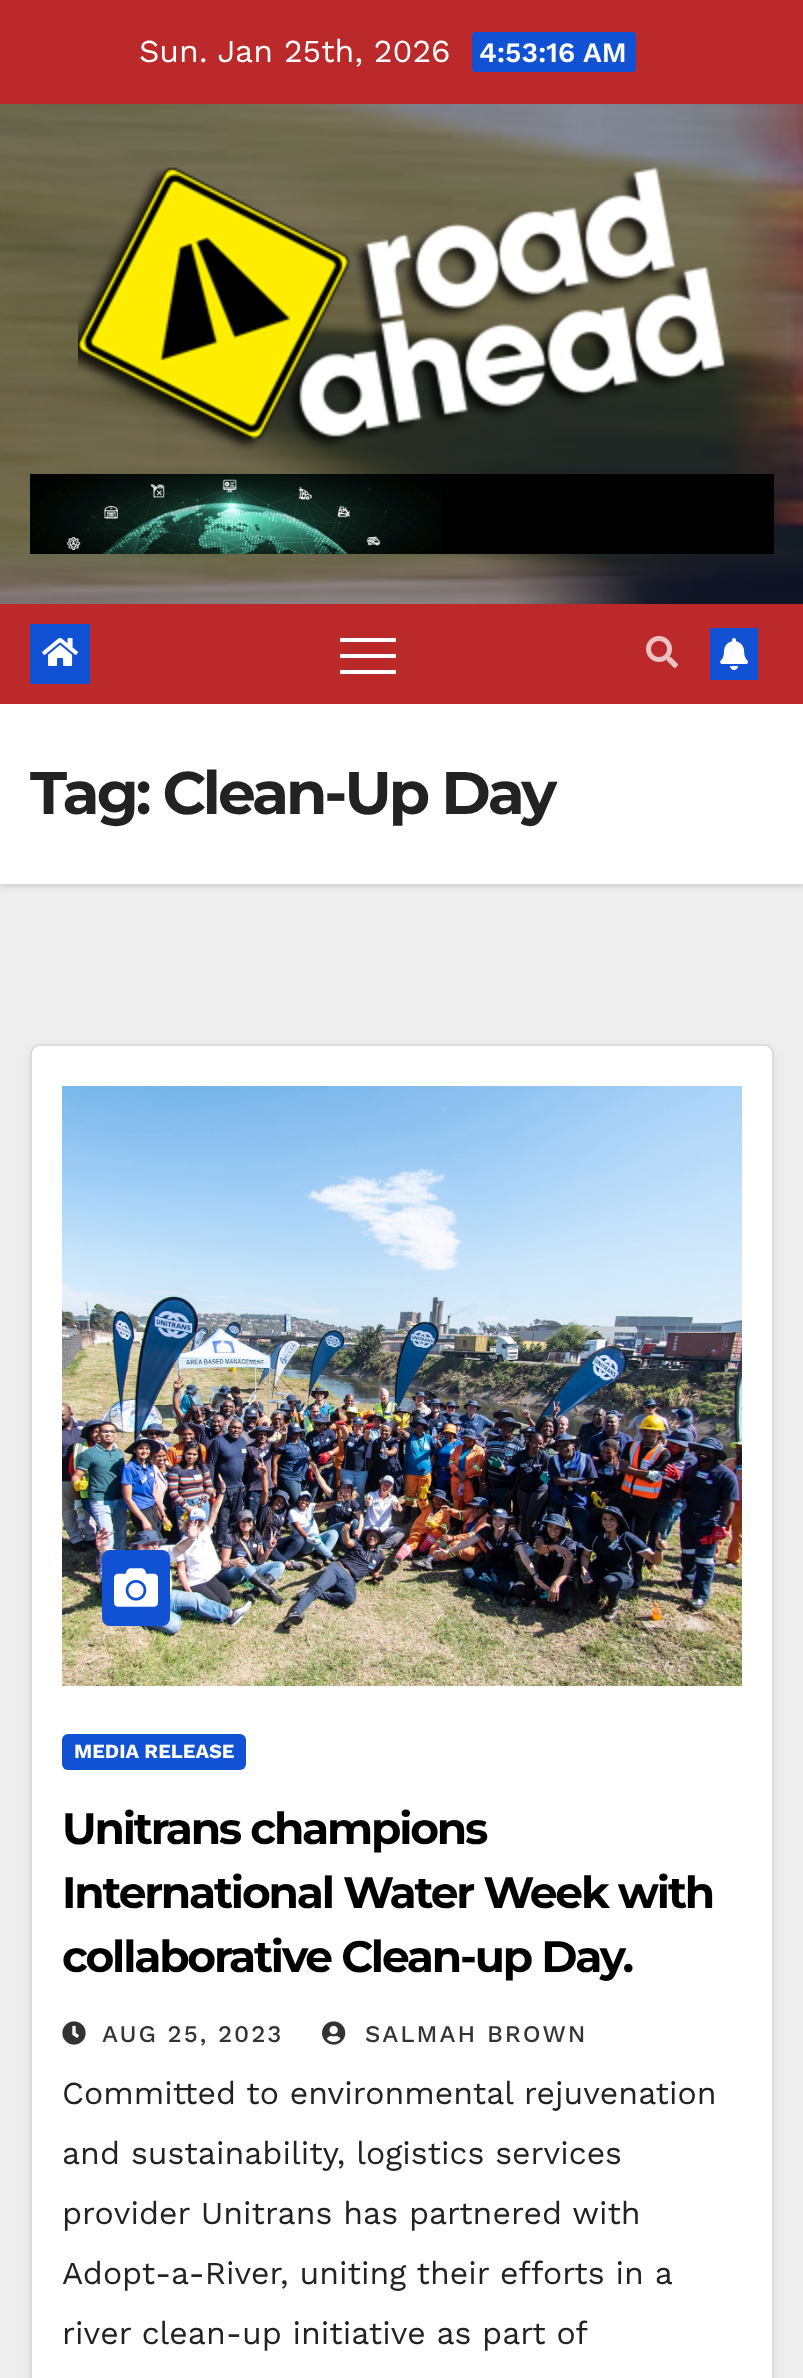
<!DOCTYPE html>
<meta charset="utf-8">
<style>body { margin: 0 } canvas { display: block }</style>
<canvas id="canvas" width="803" height="2378"></canvas>
<img id="img1" src="images/1.png" hidden>
<img id="img2" src="images/2.png" hidden>
<img id="img3" src="images/3.png" hidden>
<img id="img4" src="images/4.png" hidden>
<img id="img5" src="images/5.png" hidden>
<img id="img6" src="images/6.png" hidden>
<img id="img7" src="images/7.png" hidden>
<img id="img8" src="images/8.png" hidden>
<img id="img9" src="images/9.png" hidden>
<img id="img10" src="images/10.png" hidden>
<script>
window.onload = function () {
    const canvas = document.getElementById('canvas');
    const context = canvas.getContext('2d');
    context.miterLimit = 4;
    context.fontKerning = 'normal';

    context.fillStyle = 'rgb(238, 238, 238)';
    context.fillRect(0, 0, 803, 2378);
    context.fillStyle = 'rgb(187, 41, 42)';
    context.fillRect(0, 0, 803, 104);
    context.fillStyle = 'rgb(17, 81, 211)';
    context.beginPath();
    context.roundRect(472, 32, 164, 40, 4);
    context.fill();
    context.drawImage(document.getElementById('img1'), 0, 104, 803, 500);
    context.drawImage(document.getElementById('img2'), 78, 167, 647, 283);
    context.drawImage(document.getElementById('img3'), 30, 474, 744, 80);
    context.fillStyle = 'rgba(0, 0, 0, 0.15)';
    context.filter = 'blur(3px)';
    context.beginPath();
    context.rect(0, 706, 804, 180);
    context.fill();
    context.filter = 'none';
    context.fillStyle = 'rgb(187, 41, 42)';
    context.fillRect(0, 604, 803, 100);
    context.fillStyle = 'rgb(17, 81, 211)';
    context.fillRect(30, 624, 60, 60);
    context.drawImage(document.getElementById('img4'), 42, 638, 36, 28);
    context.fillStyle = 'rgb(255, 255, 255)';
    context.fillRect(340, 638, 56, 4);
    context.fillRect(340, 654, 56, 4);
    context.fillRect(340, 670, 56, 4);
    context.drawImage(document.getElementById('img5'), 646, 636, 32, 32);
    context.fillStyle = 'rgb(17, 81, 211)';
    context.fillRect(710, 628, 48, 52);
    context.drawImage(document.getElementById('img6'), 720, 638, 28, 32);
    context.fillStyle = 'rgb(255, 255, 255)';
    context.fillRect(0, 704, 803, 180);
    context.fillStyle = 'rgba(0, 0, 0, 0.08)';
    context.filter = 'blur(4px)';
    context.beginPath();
    context.roundRect(30, 1048, 744, 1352, 10);
    context.fill();
    context.filter = 'none';
    context.fillStyle = 'rgb(255, 255, 255)';
    context.beginPath();
    context.roundRect(31, 1045, 742, 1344, 9);
    context.fill();
    context.strokeStyle = 'rgb(221, 220, 220)';
    context.lineWidth = 2;
    context.stroke();
    context.drawImage(document.getElementById('img7'), 62, 1086, 680, 600);
    context.fillStyle = 'rgb(17, 81, 211)';
    context.beginPath();
    context.roundRect(102, 1550, 68, 76, 8);
    context.fill();
    context.drawImage(document.getElementById('img8'), 114, 1568, 44, 39);
    context.beginPath();
    context.roundRect(62, 1734, 184, 36, 6);
    context.fill();
    context.drawImage(document.getElementById('img9'), 62, 2021, 24, 24);
    context.drawImage(document.getElementById('img10'), 322, 2021, 24, 24);
    context.font = '32px Work Sans';
    context.fillStyle = 'rgb(255, 255, 255)';
    context.fillText('Sun. Jan 25th, 2026', 139, 62);
    context.font = '600 28px Work Sans';
    context.fillText('4:53:16 AM', 479, 62);
    context.letterSpacing = '-3px';
    context.font = 'bold 60px Montserrat';
    context.fillStyle = 'rgb(34, 34, 34)';
    context.fillText('Tag: Clean-Up Day', 30, 814);
    context.letterSpacing = '0px';
    context.font = 'bold 20px Work Sans';
    context.fillStyle = 'rgb(255, 255, 255)';
    context.fillText('MEDIA RELEASE', 74, 1758);
    context.letterSpacing = '-2.2px';
    context.font = 'bold 44px Montserrat';
    context.fillStyle = 'rgb(0, 0, 0)';
    context.fillText('Unitrans champions', 62, 1844);
    context.fillText('International Water Week with', 62, 1908);
    context.fillText('collaborative Clean-up Day.', 62, 1972);
    context.letterSpacing = '2px';
    context.font = '500 24px Work Sans';
    context.fillStyle = 'rgb(51, 51, 51)';
    context.fillText('AUG 25, 2023', 102, 2042);
    context.fillText('SALMAH BROWN', 365, 2042);
    context.letterSpacing = '0px';
    context.font = '32px Work Sans';
    context.fillStyle = 'rgb(34, 34, 34)';
    context.fillText('Committed to environmental rejuvenation', 62, 2104);
    context.fillText('and sustainability, logistics services', 62, 2164);
    context.fillText('provider Unitrans has partnered with', 62, 2224);
    context.fillText('Adopt-a-River, uniting their efforts in a', 62, 2284);
    context.wordSpacing = '-0.25px';
    context.fillText('river clean-up initiative as part of', 62, 2344);
};
</script>
